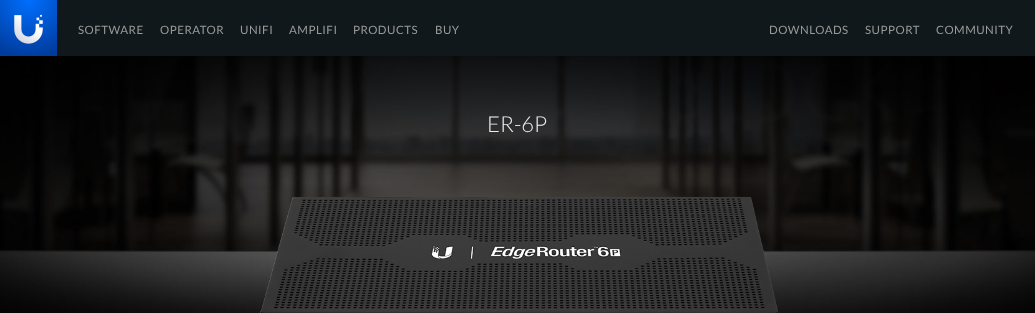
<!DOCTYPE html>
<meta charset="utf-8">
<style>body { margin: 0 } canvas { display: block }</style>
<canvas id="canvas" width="1035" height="313"></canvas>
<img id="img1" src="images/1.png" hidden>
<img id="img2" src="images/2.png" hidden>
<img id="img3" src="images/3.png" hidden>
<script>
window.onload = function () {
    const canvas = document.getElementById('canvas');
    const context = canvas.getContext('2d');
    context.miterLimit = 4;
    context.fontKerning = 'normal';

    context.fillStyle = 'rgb(255, 255, 255)';
    context.fillRect(0, 0, 1035, 313);
    context.fillStyle = 'rgb(16, 24, 27)';
    context.fillRect(57, 0, 978, 56);
    context.drawImage(document.getElementById('img1'), 0, 0, 57, 56);
    context.drawImage(document.getElementById('img2'), 0, 56, 1035, 257);
    context.drawImage(document.getElementById('img3'), 260, 197, 519, 116);
    context.letterSpacing = '0.5px';
    context.font = '11.5px Lato';
    context.fillStyle = 'rgb(153, 153, 153)';
    context.fillText('SOFTWARE', 78, 34);
    context.fillText('OPERATOR', 160, 34);
    context.fillText('UNIFI', 240, 34);
    context.fillText('AMPLIFI', 289, 34);
    context.fillText('PRODUCTS', 353, 34);
    context.fillText('BUY', 435, 34);
    context.fillText('DOWNLOADS', 769, 34);
    context.fillText('SUPPORT', 865, 34);
    context.fillText('COMMUNITY', 936, 34);
    context.letterSpacing = '0px';
    context.font = '300 22px Lato';
    context.fillStyle = 'rgb(238, 238, 238)';
    context.fillText('ER-6P', 487, 132);
};
</script>
